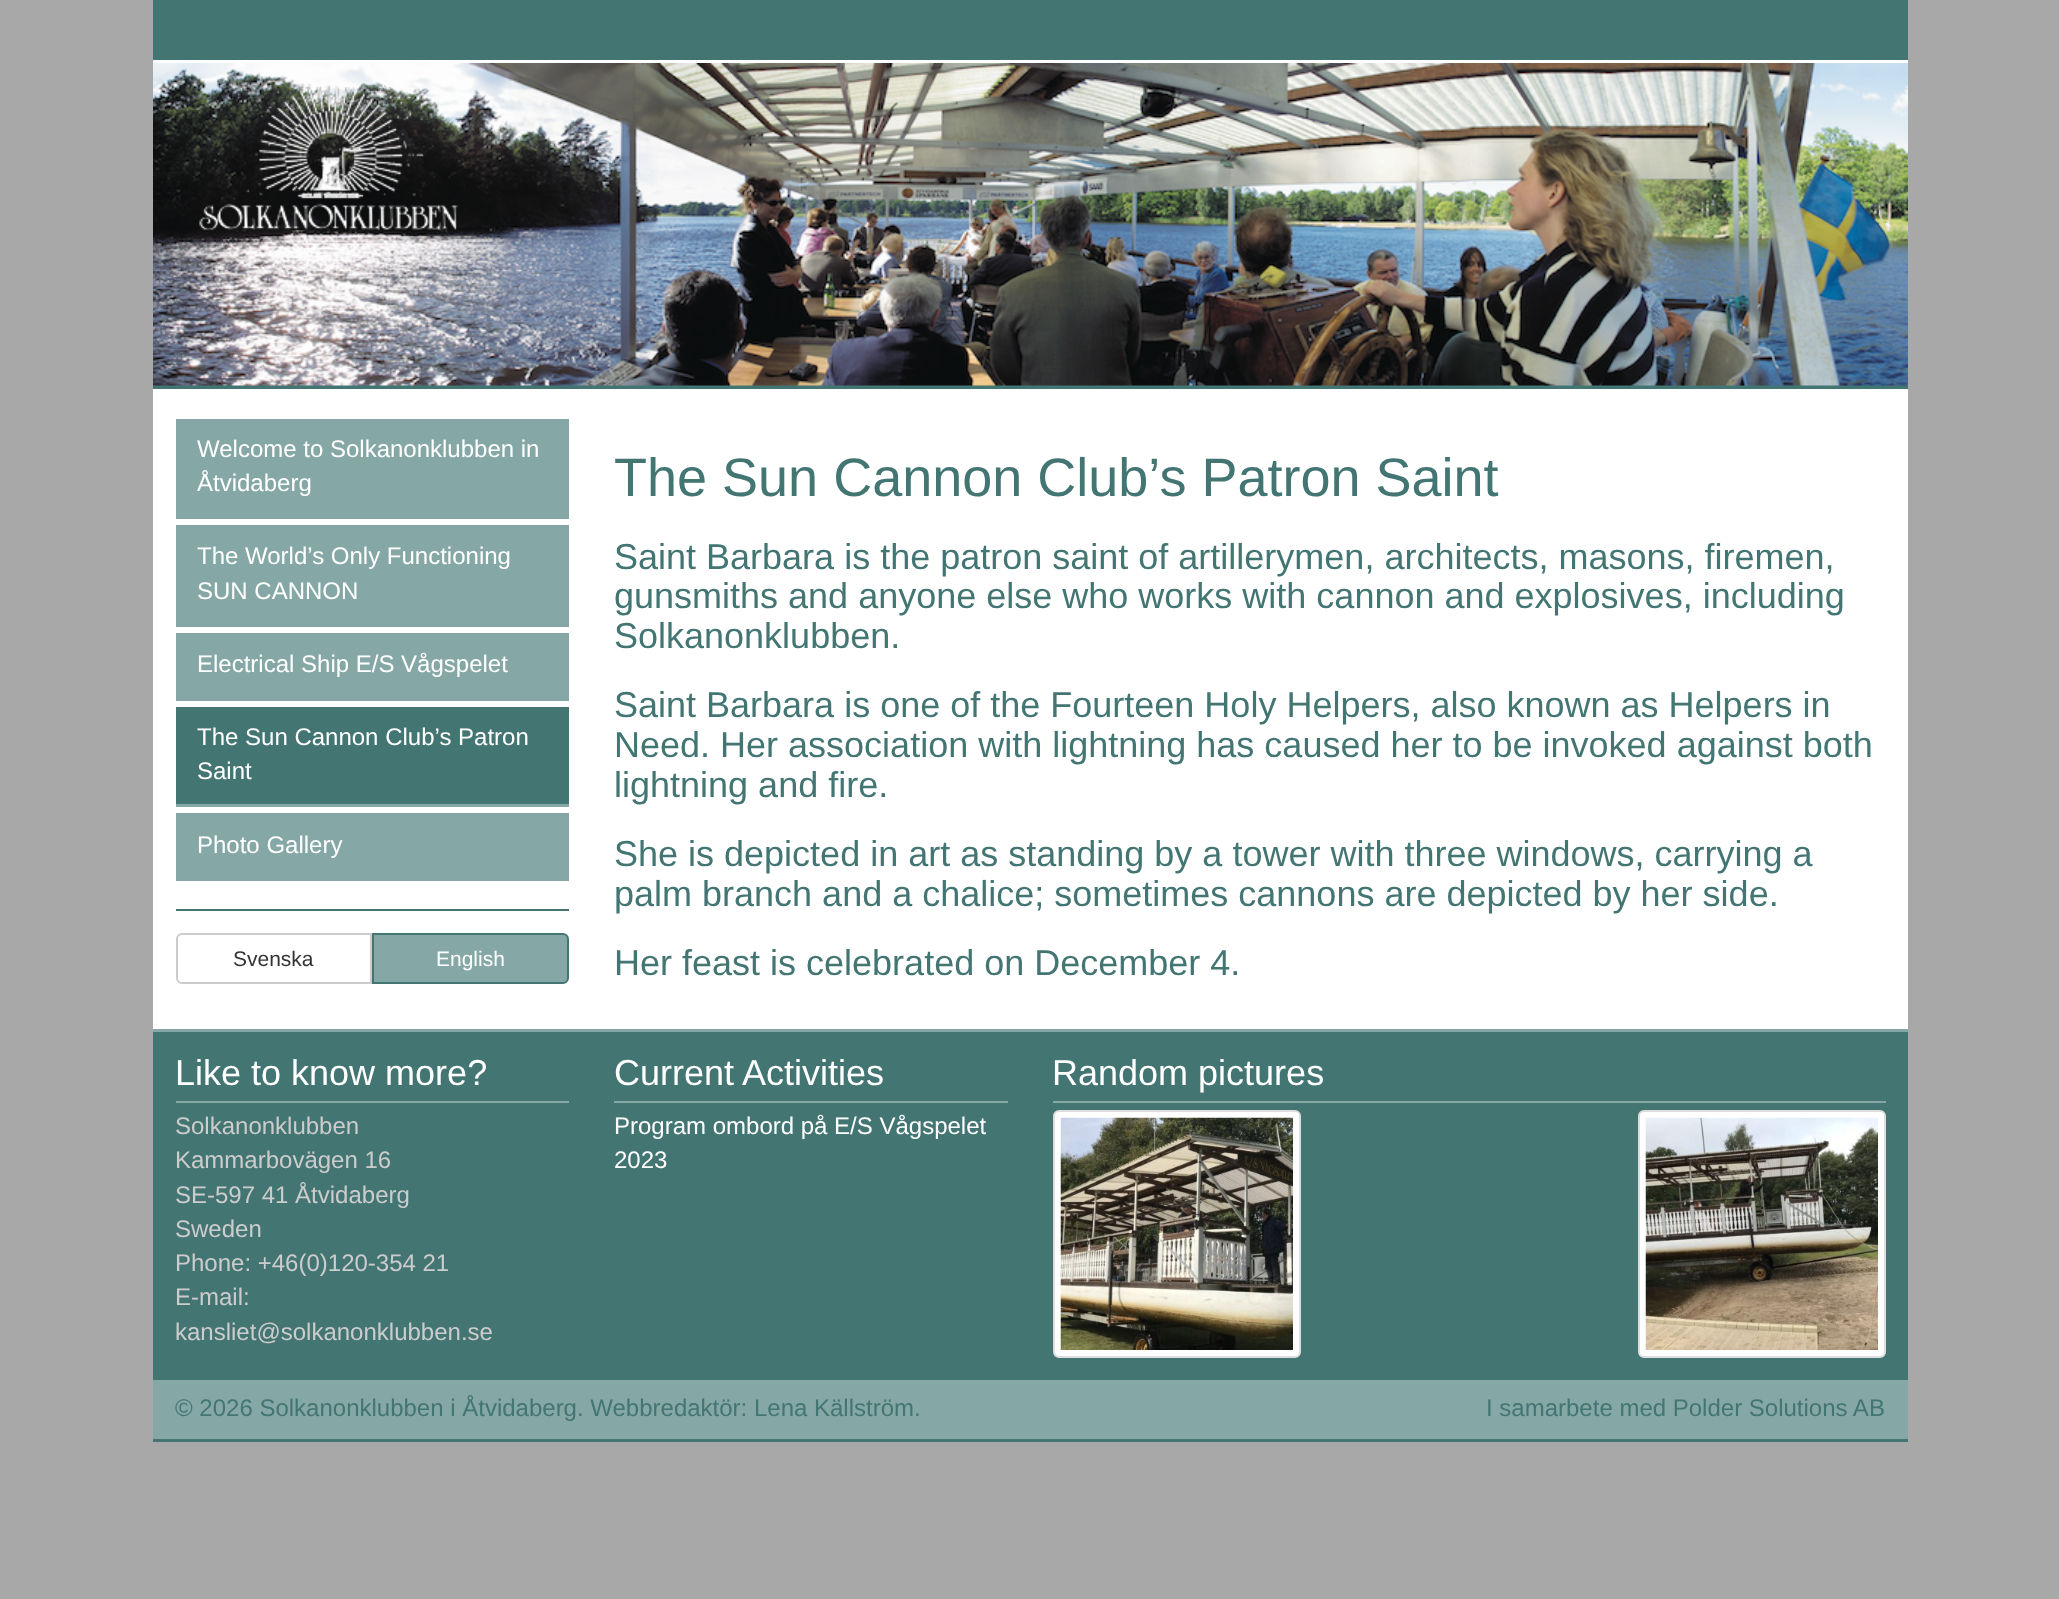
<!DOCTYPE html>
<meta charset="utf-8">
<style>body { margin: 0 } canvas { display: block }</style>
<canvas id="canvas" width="2059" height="1599"></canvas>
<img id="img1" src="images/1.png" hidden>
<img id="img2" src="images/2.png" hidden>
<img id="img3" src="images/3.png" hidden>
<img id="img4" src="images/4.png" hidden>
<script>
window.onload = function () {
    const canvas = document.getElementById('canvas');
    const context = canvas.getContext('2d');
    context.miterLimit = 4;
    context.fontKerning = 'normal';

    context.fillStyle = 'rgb(168, 168, 168)';
    context.fillRect(0, 0, 2059, 1599);
    context.fillStyle = 'rgb(67, 117, 115)';
    context.fillRect(153, 0, 1755, 389);
    context.fillStyle = 'rgb(255, 255, 255)';
    context.fillRect(153, 60, 1755, 3);
    context.drawImage(document.getElementById('img1'), 153, 63, 1755, 323);
    context.drawImage(document.getElementById('img2'), 199, 83, 259, 148);
    context.fillRect(153, 389, 1755, 640);
    context.fillStyle = 'rgb(133, 168, 166)';
    context.fillRect(176, 419, 393, 100);
    context.fillRect(176, 525, 393, 102);
    context.fillRect(176, 633, 393, 68);
    context.fillStyle = 'rgb(67, 117, 115)';
    context.fillRect(176, 707, 393, 97);
    context.fillStyle = 'rgb(133, 168, 166)';
    context.fillRect(176, 804, 393, 3);
    context.fillRect(176, 813, 393, 68);
    context.fillStyle = 'rgb(67, 117, 115)';
    context.fillRect(176, 909, 393, 2);
    context.beginPath();
    context.roundRect(177, 934, 194, 49, [5, 0, 0, 5]);
    context.strokeStyle = 'rgb(204, 204, 204)';
    context.lineWidth = 2;
    context.stroke();
    context.fillStyle = 'rgb(133, 168, 166)';
    context.beginPath();
    context.roundRect(373, 934, 195, 49, [0, 5, 5, 0]);
    context.fill();
    context.strokeStyle = 'rgb(67, 117, 115)';
    context.stroke();
    context.fillStyle = 'rgb(67, 117, 115)';
    context.fillRect(153, 1032, 1755, 348);
    context.fillStyle = 'rgb(133, 168, 166)';
    context.fillRect(153, 1029, 1755, 3);
    context.fillRect(176, 1101, 393, 2);
    context.fillRect(614, 1101, 394, 2);
    context.fillRect(1053, 1101, 833, 2);
    context.fillStyle = 'rgb(255, 255, 255)';
    context.beginPath();
    context.roundRect(1054, 1111, 246, 246, 5);
    context.fill();
    context.strokeStyle = 'rgb(221, 221, 221)';
    context.stroke();
    context.drawImage(document.getElementById('img3'), 1060, 1117, 233, 233);
    context.beginPath();
    context.roundRect(1639, 1111, 246, 246, 5);
    context.fill();
    context.stroke();
    context.drawImage(document.getElementById('img4'), 1645, 1117, 233, 233);
    context.fillStyle = 'rgb(133, 168, 166)';
    context.fillRect(153, 1380, 1755, 59);
    context.fillStyle = 'rgb(67, 117, 115)';
    context.fillRect(153, 1439, 1755, 3);
    context.font = '24px Liberation Sans';
    context.fillStyle = 'rgb(255, 255, 255)';
    context.fillText('Welcome to Solkanonklubben in', 197, 457);
    context.fillText('Åtvidaberg', 197, 491);
    context.fillText('The World’s Only Functioning', 197, 564);
    context.fillText('SUN CANNON', 197, 599);
    context.fillText('Electrical Ship E/S Vågspelet', 197, 672);
    context.fillText('The Sun Cannon Club’s Patron', 197, 745);
    context.fillText('Saint', 197, 779);
    context.fillText('Photo Gallery', 197, 853);
    context.font = '21px Liberation Sans';
    context.fillStyle = 'rgb(51, 51, 51)';
    context.fillText('Svenska', 233, 966);
    context.fillStyle = 'rgb(255, 255, 255)';
    context.fillText('English', 436, 966);
    context.font = '54px Liberation Sans';
    context.fillStyle = 'rgb(67, 117, 115)';
    context.fillText('The Sun Cannon Club’s Patron Saint', 614, 496);
    context.font = '36px Liberation Sans';
    context.fillText('Saint Barbara is the patron saint of artillerymen, architects, masons, firemen,', 614, 569);
    context.fillText('gunsmiths and anyone else who works with cannon and explosives, including', 614, 608);
    context.fillText('Solkanonklubben.', 614, 648);
    context.fillText('Saint Barbara is one of the Fourteen Holy Helpers, also known as Helpers in', 614, 717);
    context.fillText('Need. Her association with lightning has caused her to be invoked against both', 614, 757);
    context.fillText('lightning and fire.', 614, 797);
    context.fillText('She is depicted in art as standing by a tower with three windows, carrying a', 614, 866);
    context.fillText('palm branch and a chalice; sometimes cannons are depicted by her side.', 614, 906);
    context.fillText('Her feast is celebrated on December 4.', 614, 975);
    context.fillStyle = 'rgb(255, 255, 255)';
    context.fillText('Like to know more?', 175, 1085);
    context.font = '24px Liberation Sans';
    context.fillStyle = 'rgb(204, 204, 204)';
    context.fillText('Solkanonklubben', 175, 1134);
    context.fillText('Kammarbovägen 16', 175, 1168);
    context.fillText('SE-597 41 Åtvidaberg', 175, 1203);
    context.fillText('Sweden', 175, 1237);
    context.fillText('Phone: +46(0)120-354 21', 175, 1271);
    context.fillText('E-mail:', 175, 1305);
    context.fillText('kansliet@solkanonklubben.se', 175, 1340);
    context.font = '36px Liberation Sans';
    context.fillStyle = 'rgb(255, 255, 255)';
    context.fillText('Current Activities', 614, 1085);
    context.font = '24px Liberation Sans';
    context.fillText('Program ombord på E/S Vågspelet', 614, 1134);
    context.fillText('2023', 614, 1168);
    context.font = '36px Liberation Sans';
    context.fillText('Random pictures', 1052, 1085);
    context.font = '24px Liberation Sans';
    context.fillStyle = 'rgb(67, 117, 115)';
    context.fillText('© 2026 Solkanonklubben i Åtvidaberg. Webbredaktör: Lena Källström.', 175, 1416);
    context.fillText('I samarbete med Polder Solutions AB', 1486, 1416);
};
</script>
